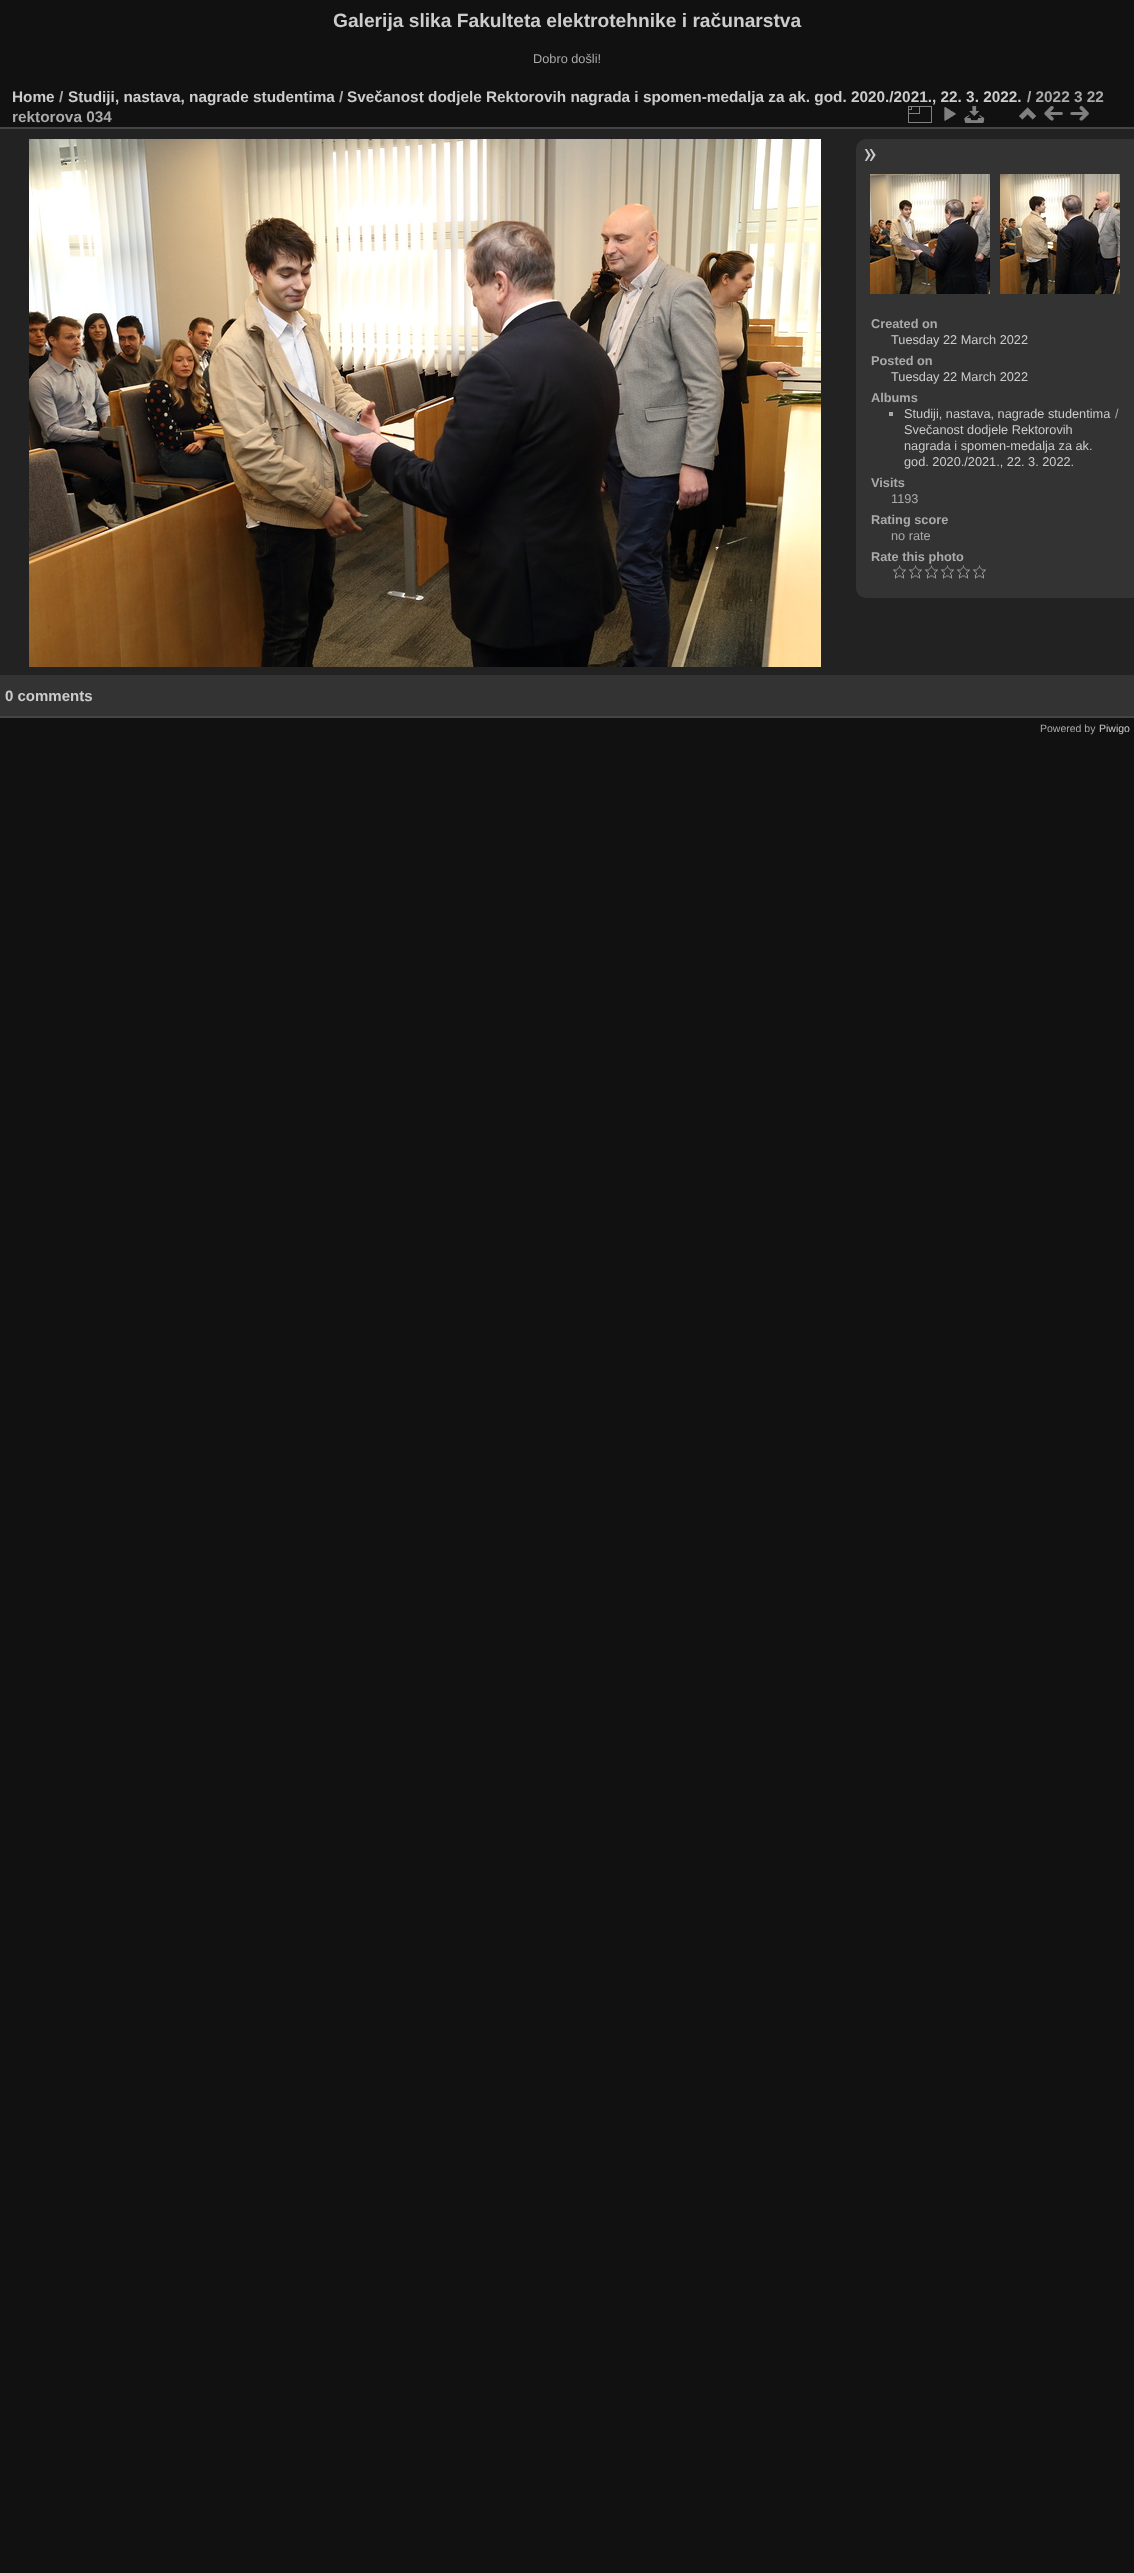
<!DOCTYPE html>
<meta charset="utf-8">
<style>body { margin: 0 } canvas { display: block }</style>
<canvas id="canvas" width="1134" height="2573"></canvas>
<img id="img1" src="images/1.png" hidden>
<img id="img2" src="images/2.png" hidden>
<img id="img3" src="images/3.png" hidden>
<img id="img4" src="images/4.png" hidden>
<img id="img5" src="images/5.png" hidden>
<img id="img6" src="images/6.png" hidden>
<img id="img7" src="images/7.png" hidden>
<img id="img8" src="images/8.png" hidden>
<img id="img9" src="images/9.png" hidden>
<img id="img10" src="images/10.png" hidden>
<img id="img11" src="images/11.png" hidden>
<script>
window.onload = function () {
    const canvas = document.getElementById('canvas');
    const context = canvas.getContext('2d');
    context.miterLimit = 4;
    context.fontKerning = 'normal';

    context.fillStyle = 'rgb(17, 17, 17)';
    context.fillRect(0, 0, 1134, 2573);
    context.fillStyle = 'rgb(34, 34, 34)';
    context.fillRect(0, 129, 1134, 546);
    context.fillStyle = 'rgb(68, 68, 68)';
    context.fillRect(0, 716, 1134, 2);
    context.fillRect(0, 127, 1134, 2);
    context.drawImage(document.getElementById('img1'), 908, 106, 24, 17);
    context.drawImage(document.getElementById('img2'), 944, 107, 12, 14);
    context.drawImage(document.getElementById('img3'), 964, 106, 21, 17);
    context.drawImage(document.getElementById('img4'), 1019, 107, 17, 13);
    context.drawImage(document.getElementById('img5'), 1044, 106, 19, 15);
    context.drawImage(document.getElementById('img6'), 1070, 106, 19, 15);
    context.drawImage(document.getElementById('img7'), 29, 139, 792, 528);
    context.fillStyle = 'rgb(51, 51, 51)';
    context.beginPath();
    context.roundRect(856, 139, 278, 459, [10, 0, 0, 10]);
    context.fill();
    context.drawImage(document.getElementById('img8'), 864, 149, 12, 12);
    context.drawImage(document.getElementById('img9'), 870, 174, 120, 120);
    context.drawImage(document.getElementById('img10'), 1000, 174, 120, 120);
    context.fillStyle = 'rgb(170, 170, 170)';
    context.fillRect(889, 412, 4, 4);
    context.drawImage(document.getElementById('img11'), 893, 565, 13, 14);
    context.drawImage(document.getElementById('img11'), 909, 565, 13, 14);
    context.drawImage(document.getElementById('img11'), 925, 565, 13, 14);
    context.drawImage(document.getElementById('img11'), 941, 565, 13, 14);
    context.drawImage(document.getElementById('img11'), 957, 565, 13, 14);
    context.drawImage(document.getElementById('img11'), 973, 565, 13, 14);
    context.fillStyle = 'rgb(51, 51, 51)';
    context.fillRect(0, 675, 1134, 41);
    context.font = 'bold 19.2px Liberation Sans';
    context.fillStyle = 'rgb(204, 204, 204)';
    context.fillText('Galerija slika Fakulteta elektrotehnike i računarstva', 333, 27);
    context.font = '12.75px Liberation Sans';
    context.fillStyle = 'rgb(170, 170, 170)';
    context.fillText('Dobro došli!', 533, 63);
    context.font = 'bold 15.35px Liberation Sans';
    context.fillStyle = 'rgb(204, 204, 204)';
    context.fillText('Home', 12, 102);
    context.fillStyle = 'rgb(170, 170, 170)';
    context.fillText('/', 59, 102);
    context.fillStyle = 'rgb(204, 204, 204)';
    context.fillText('Studiji, nastava, nagrade studentima', 68, 102);
    context.fillStyle = 'rgb(170, 170, 170)';
    context.fillText('/', 339, 102);
    context.fillStyle = 'rgb(204, 204, 204)';
    context.fillText('Svečanost dodjele Rektorovih nagrada i spomen-medalja za ak. god. 2020./2021., 22. 3. 2022.', 347, 102);
    context.fillStyle = 'rgb(170, 170, 170)';
    context.fillText('/ 2022 3 22', 1027, 102);
    context.fillText('rektorova 034', 12, 122);
    context.font = 'bold 12.75px Liberation Sans';
    context.fillText('Created on', 871, 328);
    context.font = '12.75px Liberation Sans';
    context.fillStyle = 'rgb(204, 204, 204)';
    context.fillText('Tuesday 22 March 2022', 891, 344);
    context.font = 'bold 12.75px Liberation Sans';
    context.fillStyle = 'rgb(170, 170, 170)';
    context.fillText('Posted on', 871, 365);
    context.font = '12.75px Liberation Sans';
    context.fillStyle = 'rgb(204, 204, 204)';
    context.fillText('Tuesday 22 March 2022', 891, 381);
    context.font = 'bold 12.75px Liberation Sans';
    context.fillStyle = 'rgb(170, 170, 170)';
    context.fillText('Albums', 871, 402);
    context.font = '12.75px Liberation Sans';
    context.fillStyle = 'rgb(204, 204, 204)';
    context.fillText('Studiji, nastava, nagrade studentima', 904, 418);
    context.fillStyle = 'rgb(170, 170, 170)';
    context.fillText('/', 1115, 418);
    context.fillStyle = 'rgb(204, 204, 204)';
    context.fillText('Svečanost dodjele Rektorovih', 904, 434);
    context.fillText('nagrada i spomen-medalja za ak.', 904, 450);
    context.fillText('god. 2020./2021., 22. 3. 2022.', 904, 466);
    context.font = 'bold 12.75px Liberation Sans';
    context.fillStyle = 'rgb(170, 170, 170)';
    context.fillText('Visits', 871, 487);
    context.font = '12.75px Liberation Sans';
    context.fillText('1193', 891, 503);
    context.font = 'bold 12.75px Liberation Sans';
    context.fillText('Rating score', 871, 524);
    context.font = '12.75px Liberation Sans';
    context.fillText('no rate', 891, 540);
    context.font = 'bold 12.75px Liberation Sans';
    context.fillText('Rate this photo', 871, 561);
    context.font = 'bold 15px Liberation Sans';
    context.fillStyle = 'rgb(204, 204, 204)';
    context.fillText('0 comments', 5, 701);
    context.font = '10.5px Liberation Sans';
    context.fillStyle = 'rgb(170, 170, 170)';
    context.fillText('Powered by', 1040, 732);
    context.fillStyle = 'rgb(204, 204, 204)';
    context.fillText('Piwigo', 1099, 732);
};
</script>
